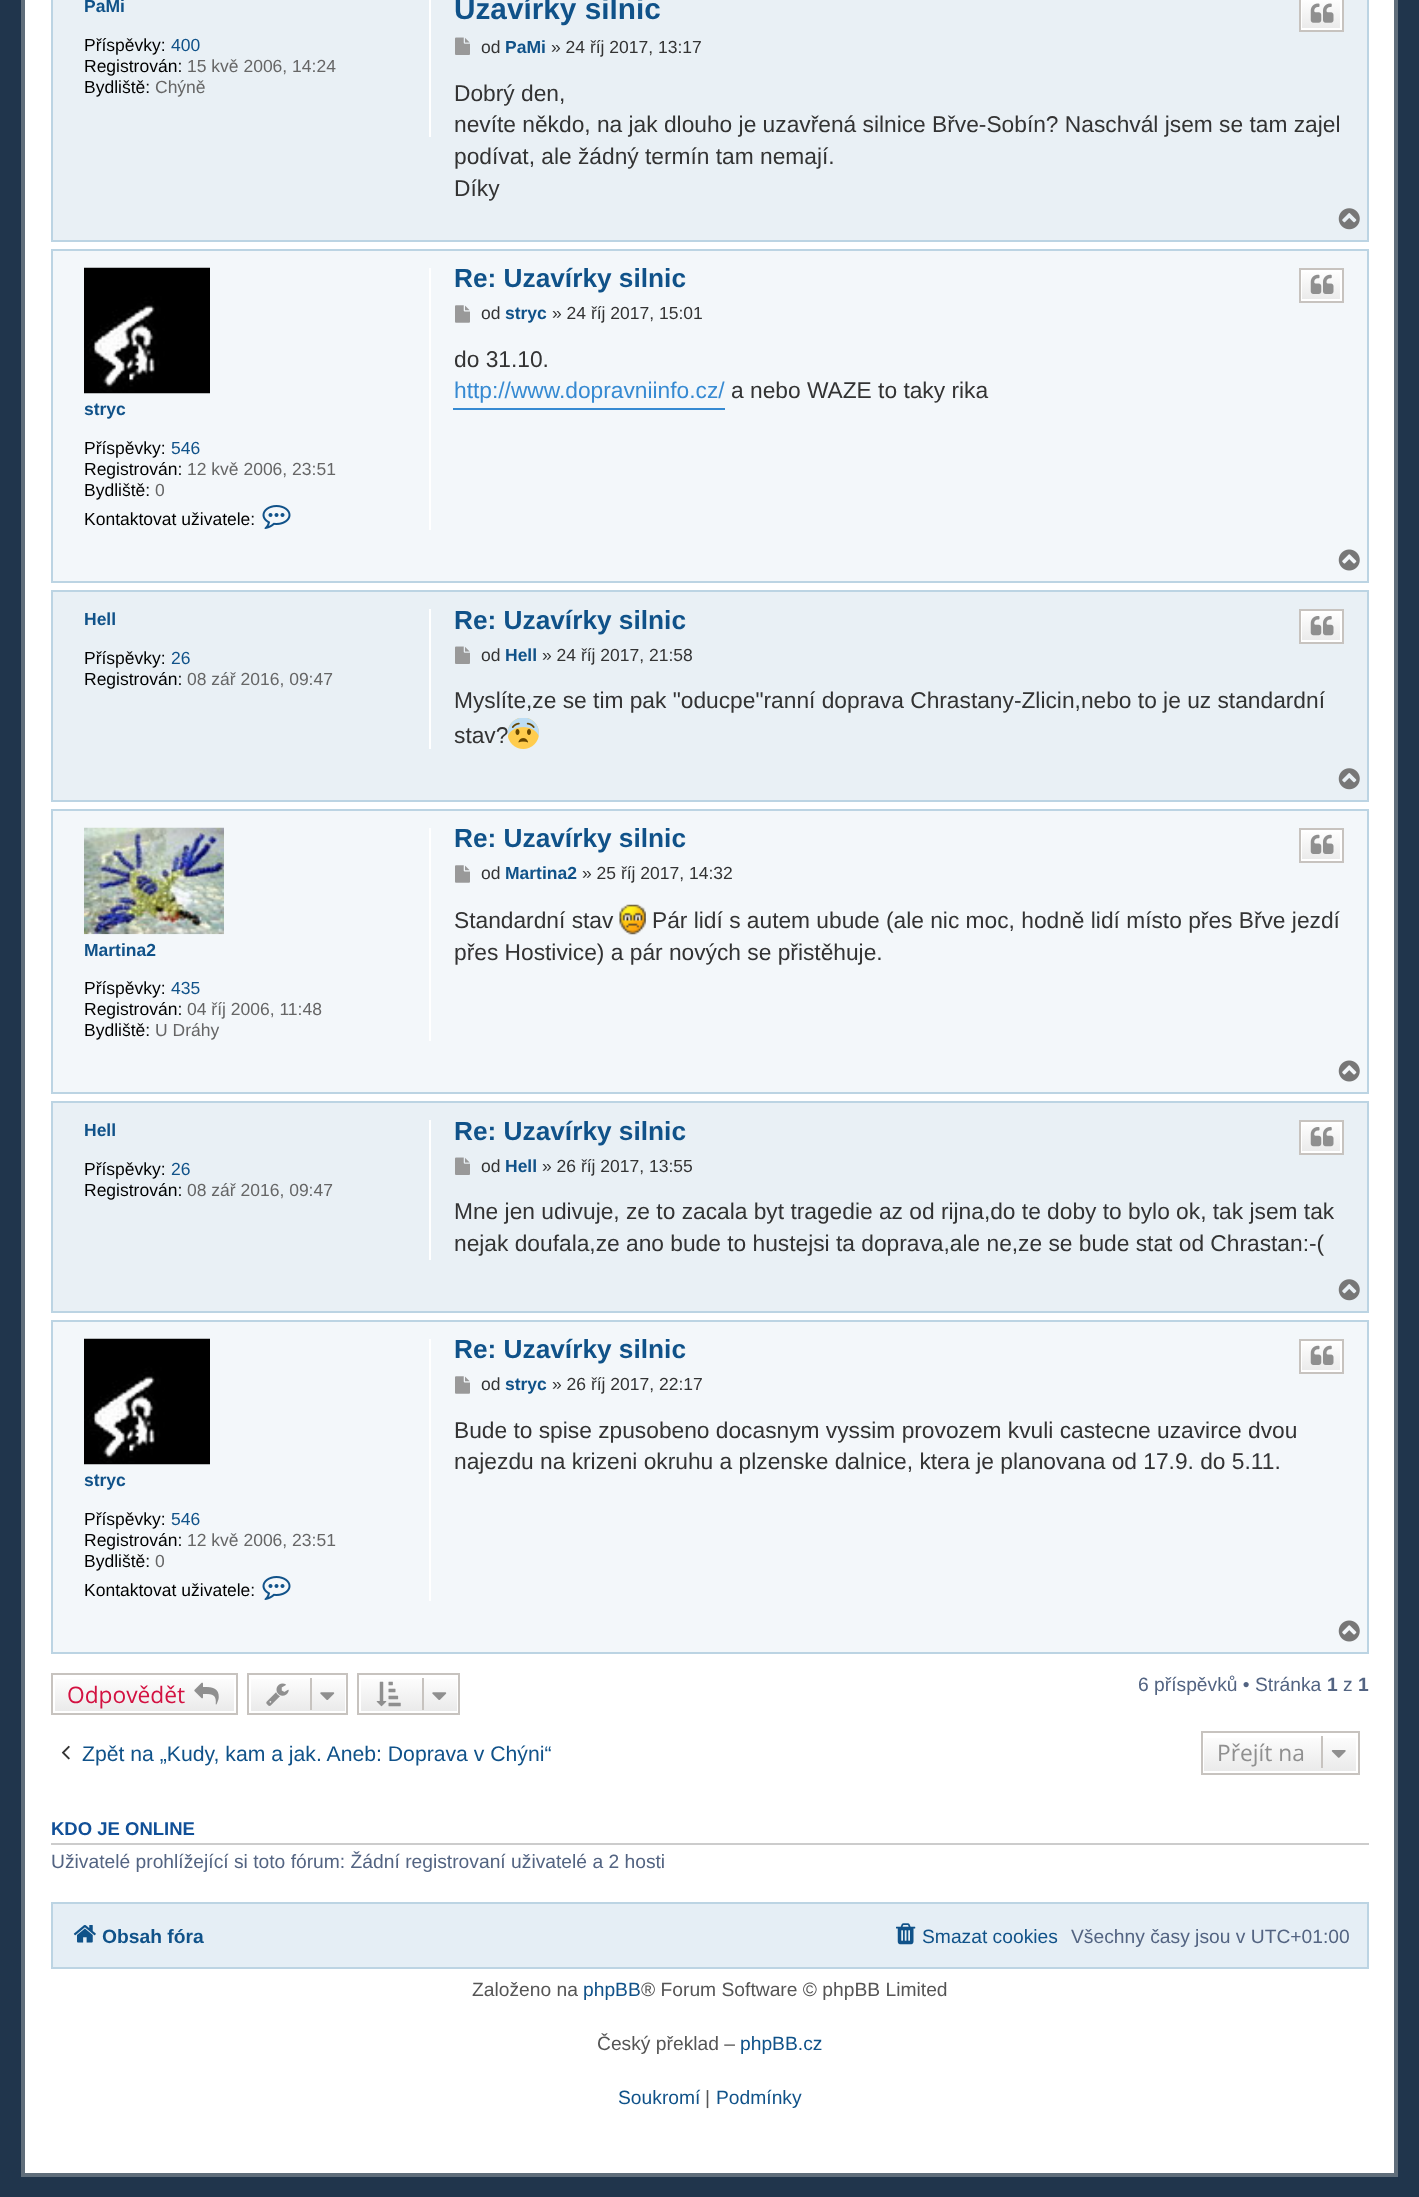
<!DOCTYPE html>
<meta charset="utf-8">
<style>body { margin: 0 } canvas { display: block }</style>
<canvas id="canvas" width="1419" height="2197"></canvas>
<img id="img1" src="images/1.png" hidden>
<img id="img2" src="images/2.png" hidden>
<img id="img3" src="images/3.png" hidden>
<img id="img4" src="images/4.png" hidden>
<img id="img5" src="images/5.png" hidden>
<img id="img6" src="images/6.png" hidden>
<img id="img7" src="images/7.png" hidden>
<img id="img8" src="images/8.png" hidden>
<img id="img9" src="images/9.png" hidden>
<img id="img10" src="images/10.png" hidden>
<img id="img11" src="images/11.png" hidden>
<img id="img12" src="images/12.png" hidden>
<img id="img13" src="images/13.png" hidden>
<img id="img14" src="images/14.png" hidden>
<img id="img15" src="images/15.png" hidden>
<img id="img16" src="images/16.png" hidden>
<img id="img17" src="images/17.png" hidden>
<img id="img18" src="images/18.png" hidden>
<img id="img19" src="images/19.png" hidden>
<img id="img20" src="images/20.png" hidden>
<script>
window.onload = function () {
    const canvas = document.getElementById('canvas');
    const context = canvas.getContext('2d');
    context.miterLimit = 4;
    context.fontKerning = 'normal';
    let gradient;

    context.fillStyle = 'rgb(32, 53, 76)';
    context.fillRect(0, 0, 1419, 2197);
    context.fillStyle = 'rgb(255, 255, 255)';
    context.beginPath();
    context.rect(23, -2, 1373, 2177);
    context.fill();
    context.strokeStyle = 'rgb(96, 110, 123)';
    context.lineWidth = 4;
    context.stroke();
    context.fillStyle = 'rgb(233, 240, 245)';
    context.beginPath();
    context.rect(52, -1, 1316, 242);
    context.fill();
    context.strokeStyle = 'rgb(188, 212, 227)';
    context.lineWidth = 2;
    context.stroke();
    context.fillStyle = 'rgb(255, 255, 255)';
    context.fillRect(429, 0, 2, 137);
    gradient = context.createLinearGradient(1321, -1.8, 1321, 30);
    gradient.addColorStop(0, 'rgb(255, 255, 255)');
    gradient.addColorStop(1, 'rgb(233, 233, 233)');
    context.fillStyle = gradient;
    context.fillRect(1302, 0, 38, 28);
    context.strokeStyle = 'rgb(255, 255, 255)';
    context.strokeRect(1301, -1, 40, 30);
    context.strokeStyle = 'rgb(199, 195, 191)';
    context.strokeRect(1300, -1, 43, 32);
    context.drawImage(document.getElementById('img1'), 1310, 3, 24, 20);
    context.drawImage(document.getElementById('img2'), 455, 37, 15, 18);
    context.drawImage(document.getElementById('img3'), 1338, 208, 22, 22);
    context.fillStyle = 'rgb(243, 247, 250)';
    context.beginPath();
    context.rect(52, 250, 1316, 332);
    context.fill();
    context.strokeStyle = 'rgb(188, 212, 227)';
    context.stroke();
    gradient = context.createLinearGradient(1321, 270, 1321, 301);
    gradient.addColorStop(0, 'rgb(255, 255, 255)');
    gradient.addColorStop(1, 'rgb(233, 233, 233)');
    context.fillStyle = gradient;
    context.fillRect(1302, 272, 38, 27);
    context.strokeStyle = 'rgb(255, 255, 255)';
    context.strokeRect(1301, 271, 40, 29);
    context.strokeStyle = 'rgb(199, 195, 191)';
    context.strokeRect(1300, 269, 43, 33);
    context.drawImage(document.getElementById('img4'), 1310, 274, 24, 20);
    context.drawImage(document.getElementById('img5'), 455, 305, 15, 18);
    context.fillStyle = 'rgb(54, 138, 210)';
    context.fillRect(453, 408, 272, 2);
    context.fillStyle = 'rgb(255, 255, 255)';
    context.fillRect(429, 268, 2, 262);
    context.drawImage(document.getElementById('img6'), 84, 267, 126, 127);
    context.drawImage(document.getElementById('img7'), 262, 505, 29, 24);
    context.drawImage(document.getElementById('img8'), 1338, 549, 22, 22);
    context.fillStyle = 'rgb(233, 240, 245)';
    context.beginPath();
    context.rect(52, 591, 1316, 210);
    context.fill();
    context.strokeStyle = 'rgb(188, 212, 227)';
    context.stroke();
    context.fillStyle = 'rgb(255, 255, 255)';
    context.fillRect(429, 609, 2, 140);
    gradient = context.createLinearGradient(1321, 611, 1321, 642);
    gradient.addColorStop(0, 'rgb(255, 255, 255)');
    gradient.addColorStop(1, 'rgb(233, 233, 233)');
    context.fillStyle = gradient;
    context.fillRect(1302, 613, 38, 27);
    context.strokeStyle = 'rgb(255, 255, 255)';
    context.strokeRect(1301, 612, 40, 29);
    context.strokeStyle = 'rgb(199, 195, 191)';
    context.strokeRect(1300, 610, 43, 33);
    context.drawImage(document.getElementById('img9'), 1310, 616, 24, 20);
    context.drawImage(document.getElementById('img2'), 455, 646, 15, 18);
    context.drawImage(document.getElementById('img10'), 508, 718, 31, 31);
    context.drawImage(document.getElementById('img3'), 1338, 768, 22, 22);
    context.fillStyle = 'rgb(243, 247, 250)';
    context.beginPath();
    context.rect(52, 810, 1316, 283);
    context.fill();
    context.strokeStyle = 'rgb(188, 212, 227)';
    context.stroke();
    gradient = context.createLinearGradient(1321, 830, 1321, 861);
    gradient.addColorStop(0, 'rgb(255, 255, 255)');
    gradient.addColorStop(1, 'rgb(233, 233, 233)');
    context.fillStyle = gradient;
    context.fillRect(1302, 832, 38, 27);
    context.strokeStyle = 'rgb(255, 255, 255)';
    context.strokeRect(1301, 831, 40, 29);
    context.strokeStyle = 'rgb(199, 195, 191)';
    context.strokeRect(1300, 829, 43, 33);
    context.drawImage(document.getElementById('img4'), 1310, 834, 24, 20);
    context.drawImage(document.getElementById('img5'), 455, 865, 15, 18);
    context.drawImage(document.getElementById('img11'), 619, 904, 27, 31);
    context.fillStyle = 'rgb(255, 255, 255)';
    context.fillRect(429, 828, 2, 213);
    context.drawImage(document.getElementById('img12'), 84, 827, 140, 108);
    context.drawImage(document.getElementById('img8'), 1338, 1060, 22, 22);
    context.fillStyle = 'rgb(233, 240, 245)';
    context.beginPath();
    context.rect(52, 1102, 1316, 210);
    context.fill();
    context.strokeStyle = 'rgb(188, 212, 227)';
    context.stroke();
    context.fillStyle = 'rgb(255, 255, 255)';
    context.fillRect(429, 1120, 2, 140);
    gradient = context.createLinearGradient(1321, 1122, 1321, 1153);
    gradient.addColorStop(0, 'rgb(255, 255, 255)');
    gradient.addColorStop(1, 'rgb(233, 233, 233)');
    context.fillStyle = gradient;
    context.fillRect(1302, 1124, 38, 27);
    context.strokeStyle = 'rgb(255, 255, 255)';
    context.strokeRect(1301, 1123, 40, 29);
    context.strokeStyle = 'rgb(199, 195, 191)';
    context.strokeRect(1300, 1121, 43, 33);
    context.drawImage(document.getElementById('img9'), 1310, 1127, 24, 20);
    context.drawImage(document.getElementById('img2'), 455, 1157, 15, 18);
    context.drawImage(document.getElementById('img3'), 1338, 1279, 22, 22);
    context.fillStyle = 'rgb(243, 247, 250)';
    context.beginPath();
    context.rect(52, 1321, 1316, 332);
    context.fill();
    context.strokeStyle = 'rgb(188, 212, 227)';
    context.stroke();
    gradient = context.createLinearGradient(1321, 1341, 1321, 1372);
    gradient.addColorStop(0, 'rgb(255, 255, 255)');
    gradient.addColorStop(1, 'rgb(233, 233, 233)');
    context.fillStyle = gradient;
    context.fillRect(1302, 1343, 38, 27);
    context.strokeStyle = 'rgb(255, 255, 255)';
    context.strokeRect(1301, 1342, 40, 29);
    context.strokeStyle = 'rgb(199, 195, 191)';
    context.strokeRect(1300, 1340, 43, 33);
    context.drawImage(document.getElementById('img4'), 1310, 1345, 24, 20);
    context.drawImage(document.getElementById('img5'), 455, 1376, 15, 18);
    context.fillStyle = 'rgb(255, 255, 255)';
    context.fillRect(429, 1339, 2, 262);
    context.drawImage(document.getElementById('img6'), 84, 1338, 126, 127);
    context.drawImage(document.getElementById('img7'), 262, 1576, 29, 24);
    context.drawImage(document.getElementById('img8'), 1338, 1620, 22, 22);
    gradient = context.createLinearGradient(144, 1675, 144, 1713);
    gradient.addColorStop(0, 'rgb(255, 255, 255)');
    gradient.addColorStop(1, 'rgb(233, 233, 233)');
    context.fillStyle = gradient;
    context.fillRect(55, 1679, 179, 32);
    context.strokeRect(52, 1674, 185, 40);
    context.drawImage(document.getElementById('img13'), 194, 1682, 25, 23);
    gradient = context.createLinearGradient(298, 1675, 298, 1713);
    gradient.addColorStop(0, 'rgb(255, 255, 255)');
    gradient.addColorStop(1, 'rgb(233, 233, 233)');
    context.fillStyle = gradient;
    context.fillRect(251, 1679, 94, 32);
    context.strokeRect(248, 1674, 99, 40);
    context.drawImage(document.getElementById('img14'), 266, 1683, 23, 23);
    context.fillStyle = 'rgb(199, 195, 191)';
    context.fillRect(310, 1678, 2, 32);
    context.drawImage(document.getElementById('img15'), 320, 1692, 15, 8);
    gradient = context.createLinearGradient(409, 1675, 409, 1713);
    gradient.addColorStop(0, 'rgb(255, 255, 255)');
    gradient.addColorStop(1, 'rgb(233, 233, 233)');
    context.fillStyle = gradient;
    context.fillRect(361, 1679, 96, 32);
    context.strokeRect(358, 1674, 101, 40);
    context.drawImage(document.getElementById('img16'), 376, 1681, 25, 26);
    context.fillStyle = 'rgb(199, 195, 191)';
    context.fillRect(422, 1678, 2, 32);
    context.drawImage(document.getElementById('img15'), 432, 1692, 15, 8);
    context.drawImage(document.getElementById('img17'), 61, 1745, 9, 15);
    gradient = context.createLinearGradient(1280, 1733, 1280, 1773);
    gradient.addColorStop(0, 'rgb(255, 255, 255)');
    gradient.addColorStop(1, 'rgb(233, 233, 233)');
    context.fillStyle = gradient;
    context.fillRect(1204, 1738, 152, 33);
    context.strokeRect(1202, 1732, 157, 42);
    context.fillStyle = 'rgb(199, 195, 191)';
    context.fillRect(1321, 1736, 2, 32);
    context.drawImage(document.getElementById('img18'), 1331, 1750, 15, 8);
    context.fillStyle = 'rgb(204, 204, 204)';
    context.fillRect(51, 1843, 1318, 2);
    context.fillStyle = 'rgb(229, 238, 245)';
    context.beginPath();
    context.rect(52, 1903, 1316, 65);
    context.fill();
    context.strokeStyle = 'rgb(188, 212, 227)';
    context.stroke();
    context.drawImage(document.getElementById('img19'), 73, 1925, 23, 18);
    context.drawImage(document.getElementById('img20'), 896, 1923, 20, 22);
    context.font = 'bold 17.5px Liberation Sans';
    context.fillStyle = 'rgb(16, 82, 137)';
    context.fillText('PaMi', 84, 12);
    context.font = '17.5px Liberation Sans';
    context.fillStyle = 'rgb(0, 0, 0)';
    context.fillText('Příspěvky:', 84, 51);
    context.fillStyle = 'rgb(16, 82, 137)';
    context.fillText('400', 171, 51);
    context.fillStyle = 'rgb(0, 0, 0)';
    context.fillText('Registrován:', 84, 72);
    context.fillStyle = 'rgb(102, 102, 102)';
    context.fillText('15 kvě 2006, 14:24', 187, 72);
    context.fillStyle = 'rgb(0, 0, 0)';
    context.fillText('Bydliště:', 84, 93);
    context.fillStyle = 'rgb(102, 102, 102)';
    context.fillText('Chýně', 155, 93);
    context.font = 'bold 29.75px Liberation Sans';
    context.fillStyle = 'rgb(16, 82, 137)';
    context.fillText('Uzavírky silnic', 454, 19);
    context.font = '17.5px Liberation Sans';
    context.fillStyle = 'rgb(51, 51, 51)';
    context.fillText('od', 481, 53);
    context.font = 'bold 17.5px Liberation Sans';
    context.fillStyle = 'rgb(16, 82, 137)';
    context.fillText('PaMi', 505, 53);
    context.font = '17.5px Liberation Sans';
    context.fillStyle = 'rgb(51, 51, 51)';
    context.fillText('» 24 říj 2017, 13:17', 551, 53);
    context.font = '22.75px Liberation Sans';
    context.fillText('Dobrý den,', 454, 101);
    context.fillText('nevíte někdo, na jak dlouho je uzavřená silnice Břve-Sobín? Naschvál jsem se tam zajel', 454, 132);
    context.fillText('podívat, ale žádný termín tam nemají.', 454, 164);
    context.fillText('Díky', 454, 196);
    context.font = 'bold 26.25px Liberation Sans';
    context.fillStyle = 'rgb(16, 82, 137)';
    context.fillText('Re: Uzavírky silnic', 454, 287);
    context.font = '17.5px Liberation Sans';
    context.fillStyle = 'rgb(51, 51, 51)';
    context.fillText('od', 481, 319);
    context.font = 'bold 17.5px Liberation Sans';
    context.fillStyle = 'rgb(16, 82, 137)';
    context.fillText('stryc', 505, 319);
    context.font = '17.5px Liberation Sans';
    context.fillStyle = 'rgb(51, 51, 51)';
    context.fillText('» 24 říj 2017, 15:01', 552, 319);
    context.font = '22.75px Liberation Sans';
    context.fillText('do 31.10.', 454, 367);
    context.fillStyle = 'rgb(54, 138, 210)';
    context.fillText('http://www.dopravniinfo.cz/', 454, 398);
    context.fillStyle = 'rgb(51, 51, 51)';
    context.fillText('a nebo WAZE to taky rika', 731, 398);
    context.font = 'bold 17.5px Liberation Sans';
    context.fillStyle = 'rgb(16, 82, 137)';
    context.fillText('stryc', 84, 415);
    context.font = '17.5px Liberation Sans';
    context.fillStyle = 'rgb(0, 0, 0)';
    context.fillText('Příspěvky:', 84, 454);
    context.fillStyle = 'rgb(16, 82, 137)';
    context.fillText('546', 171, 454);
    context.fillStyle = 'rgb(0, 0, 0)';
    context.fillText('Registrován:', 84, 475);
    context.fillStyle = 'rgb(102, 102, 102)';
    context.fillText('12 kvě 2006, 23:51', 187, 475);
    context.fillStyle = 'rgb(0, 0, 0)';
    context.fillText('Bydliště:', 84, 496);
    context.fillStyle = 'rgb(102, 102, 102)';
    context.fillText('0', 155, 496);
    context.fillStyle = 'rgb(0, 0, 0)';
    context.fillText('Kontaktovat uživatele:', 84, 525);
    context.font = 'bold 17.5px Liberation Sans';
    context.fillStyle = 'rgb(16, 82, 137)';
    context.fillText('Hell', 84, 625);
    context.font = '17.5px Liberation Sans';
    context.fillStyle = 'rgb(0, 0, 0)';
    context.fillText('Příspěvky:', 84, 664);
    context.fillStyle = 'rgb(16, 82, 137)';
    context.fillText('26', 171, 664);
    context.fillStyle = 'rgb(0, 0, 0)';
    context.fillText('Registrován:', 84, 685);
    context.fillStyle = 'rgb(102, 102, 102)';
    context.fillText('08 zář 2016, 09:47', 187, 685);
    context.font = 'bold 26.25px Liberation Sans';
    context.fillStyle = 'rgb(16, 82, 137)';
    context.fillText('Re: Uzavírky silnic', 454, 629);
    context.font = '17.5px Liberation Sans';
    context.fillStyle = 'rgb(51, 51, 51)';
    context.fillText('od', 481, 661);
    context.font = 'bold 17.5px Liberation Sans';
    context.fillStyle = 'rgb(16, 82, 137)';
    context.fillText('Hell', 505, 661);
    context.font = '17.5px Liberation Sans';
    context.fillStyle = 'rgb(51, 51, 51)';
    context.fillText('» 24 říj 2017, 21:58', 542, 661);
    context.font = '22.75px Liberation Sans';
    context.fillText('Myslíte,ze se tim pak "oducpe"ranní doprava Chrastany-Zlicin,nebo to je uz standardní', 454, 708);
    context.fillText('stav?', 454, 743);
    context.font = 'bold 26.25px Liberation Sans';
    context.fillStyle = 'rgb(16, 82, 137)';
    context.fillText('Re: Uzavírky silnic', 454, 847);
    context.font = '17.5px Liberation Sans';
    context.fillStyle = 'rgb(51, 51, 51)';
    context.fillText('od', 481, 879);
    context.font = 'bold 17.5px Liberation Sans';
    context.fillStyle = 'rgb(16, 82, 137)';
    context.fillText('Martina2', 505, 879);
    context.font = '17.5px Liberation Sans';
    context.fillStyle = 'rgb(51, 51, 51)';
    context.fillText('» 25 říj 2017, 14:32', 582, 879);
    context.font = '22.75px Liberation Sans';
    context.fillText('Standardní stav', 454, 928);
    context.fillText('Pár lidí s autem ubude (ale nic moc, hodně lidí místo přes Břve jezdí', 652, 928);
    context.fillText('přes Hostivice) a pár nových se přistěhuje.', 454, 960);
    context.font = 'bold 17.5px Liberation Sans';
    context.fillStyle = 'rgb(16, 82, 137)';
    context.fillText('Martina2', 84, 956);
    context.font = '17.5px Liberation Sans';
    context.fillStyle = 'rgb(0, 0, 0)';
    context.fillText('Příspěvky:', 84, 994);
    context.fillStyle = 'rgb(16, 82, 137)';
    context.fillText('435', 171, 994);
    context.fillStyle = 'rgb(0, 0, 0)';
    context.fillText('Registrován:', 84, 1015);
    context.fillStyle = 'rgb(102, 102, 102)';
    context.fillText('04 říj 2006, 11:48', 187, 1015);
    context.fillStyle = 'rgb(0, 0, 0)';
    context.fillText('Bydliště:', 84, 1036);
    context.fillStyle = 'rgb(102, 102, 102)';
    context.fillText('U Dráhy', 155, 1036);
    context.font = 'bold 17.5px Liberation Sans';
    context.fillStyle = 'rgb(16, 82, 137)';
    context.fillText('Hell', 84, 1136);
    context.font = '17.5px Liberation Sans';
    context.fillStyle = 'rgb(0, 0, 0)';
    context.fillText('Příspěvky:', 84, 1175);
    context.fillStyle = 'rgb(16, 82, 137)';
    context.fillText('26', 171, 1175);
    context.fillStyle = 'rgb(0, 0, 0)';
    context.fillText('Registrován:', 84, 1196);
    context.fillStyle = 'rgb(102, 102, 102)';
    context.fillText('08 zář 2016, 09:47', 187, 1196);
    context.font = 'bold 26.25px Liberation Sans';
    context.fillStyle = 'rgb(16, 82, 137)';
    context.fillText('Re: Uzavírky silnic', 454, 1140);
    context.font = '17.5px Liberation Sans';
    context.fillStyle = 'rgb(51, 51, 51)';
    context.fillText('od', 481, 1172);
    context.font = 'bold 17.5px Liberation Sans';
    context.fillStyle = 'rgb(16, 82, 137)';
    context.fillText('Hell', 505, 1172);
    context.font = '17.5px Liberation Sans';
    context.fillStyle = 'rgb(51, 51, 51)';
    context.fillText('» 26 říj 2017, 13:55', 542, 1172);
    context.font = '22.75px Liberation Sans';
    context.fillText('Mne jen udivuje, ze to zacala byt tragedie az od rijna,do te doby to bylo ok, tak jsem tak', 454, 1219);
    context.fillText('nejak doufala,ze ano bude to hustejsi ta doprava,ale ne,ze se bude stat od Chrastan:-(', 454, 1251);
    context.font = 'bold 26.25px Liberation Sans';
    context.fillStyle = 'rgb(16, 82, 137)';
    context.fillText('Re: Uzavírky silnic', 454, 1358);
    context.font = '17.5px Liberation Sans';
    context.fillStyle = 'rgb(51, 51, 51)';
    context.fillText('od', 481, 1390);
    context.font = 'bold 17.5px Liberation Sans';
    context.fillStyle = 'rgb(16, 82, 137)';
    context.fillText('stryc', 505, 1390);
    context.font = '17.5px Liberation Sans';
    context.fillStyle = 'rgb(51, 51, 51)';
    context.fillText('» 26 říj 2017, 22:17', 552, 1390);
    context.font = '22.75px Liberation Sans';
    context.fillText('Bude to spise zpusobeno docasnym vyssim provozem kvuli castecne uzavirce dvou', 454, 1438);
    context.fillText('najezdu na krizeni okruhu a plzenske dalnice, ktera je planovana od 17.9. do 5.11.', 454, 1469);
    context.font = 'bold 17.5px Liberation Sans';
    context.fillStyle = 'rgb(16, 82, 137)';
    context.fillText('stryc', 84, 1486);
    context.font = '17.5px Liberation Sans';
    context.fillStyle = 'rgb(0, 0, 0)';
    context.fillText('Příspěvky:', 84, 1525);
    context.fillStyle = 'rgb(16, 82, 137)';
    context.fillText('546', 171, 1525);
    context.fillStyle = 'rgb(0, 0, 0)';
    context.fillText('Registrován:', 84, 1546);
    context.fillStyle = 'rgb(102, 102, 102)';
    context.fillText('12 kvě 2006, 23:51', 187, 1546);
    context.fillStyle = 'rgb(0, 0, 0)';
    context.fillText('Bydliště:', 84, 1567);
    context.fillStyle = 'rgb(102, 102, 102)';
    context.fillText('0', 155, 1567);
    context.fillStyle = 'rgb(0, 0, 0)';
    context.fillText('Kontaktovat uživatele:', 84, 1596);
    context.font = '22.75px Open Sans';
    context.fillStyle = 'rgb(211, 17, 65)';
    context.fillText('Odpovědět', 67, 1703);
    context.font = '19.25px Liberation Sans';
    context.fillStyle = 'rgb(83, 100, 130)';
    context.fillText('6 příspěvků • Stránka', 1138, 1691);
    context.font = 'bold 19.25px Liberation Sans';
    context.fillText('1', 1327, 1691);
    context.font = '19.25px Liberation Sans';
    context.fillText('z', 1343, 1691);
    context.font = 'bold 19.25px Liberation Sans';
    context.fillText('1', 1358, 1691);
    context.font = '21.2px Liberation Sans';
    context.fillStyle = 'rgb(16, 82, 137)';
    context.fillText('Zpět na „Kudy, kam a jak. Aneb: Doprava v Chýni“', 82, 1761);
    context.font = '22.75px Open Sans';
    context.fillStyle = 'rgb(143, 143, 143)';
    context.fillText('Přejít na', 1217, 1761);
    context.font = 'bold 18.5px Liberation Sans';
    context.fillStyle = 'rgb(17, 80, 152)';
    context.fillText('KDO JE ONLINE', 51, 1835);
    context.font = '19.25px Liberation Sans';
    context.fillStyle = 'rgb(83, 100, 130)';
    context.fillText('Uživatelé prohlížející si toto fórum: Žádní registrovaní uživatelé a 2 hosti', 51, 1868);
    context.font = 'bold 19.25px Liberation Sans';
    context.fillStyle = 'rgb(16, 82, 137)';
    context.fillText('Obsah fóra', 102, 1943);
    context.font = '19.25px Liberation Sans';
    context.fillText('Smazat cookies', 922, 1943);
    context.fillStyle = 'rgb(83, 100, 130)';
    context.fillText('Všechny časy jsou v UTC+01:00', 1071, 1943);
    context.fillStyle = 'rgb(85, 85, 85)';
    context.fillText('Založeno na', 472, 1996);
    context.fillStyle = 'rgb(16, 82, 137)';
    context.fillText('phpBB', 583, 1996);
    context.fillStyle = 'rgb(85, 85, 85)';
    context.fillText('® Forum Software © phpBB Limited', 641, 1996);
    context.fillText('Český překlad –', 597, 2050);
    context.fillStyle = 'rgb(16, 82, 137)';
    context.fillText('phpBB.cz', 740, 2050);
    context.fillText('Soukromí', 618, 2104);
    context.fillStyle = 'rgb(85, 85, 85)';
    context.fillText('|', 705, 2104);
    context.fillStyle = 'rgb(16, 82, 137)';
    context.fillText('Podmínky', 716, 2104);
};
</script>
